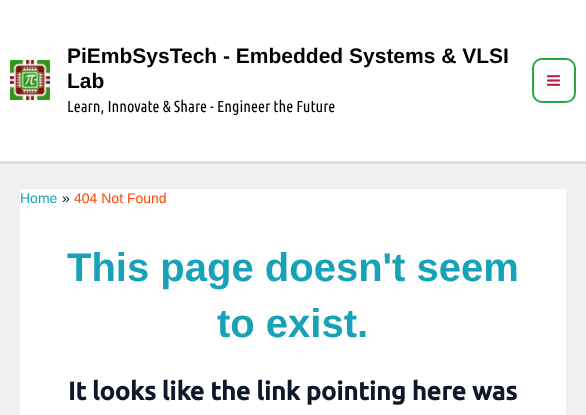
<!DOCTYPE html>
<meta charset="utf-8">
<style>body { margin: 0 } canvas { display: block }</style>
<canvas id="canvas" width="586" height="415"></canvas>
<img id="img1" src="images/1.png" hidden>
<img id="img2" src="images/2.png" hidden>
<script>
window.onload = function () {
    const canvas = document.getElementById('canvas');
    const context = canvas.getContext('2d');
    context.miterLimit = 4;
    context.fontKerning = 'normal';

    context.fillStyle = 'rgb(240, 240, 240)';
    context.fillRect(0, 0, 586, 415);
    context.fillStyle = 'rgb(255, 255, 255)';
    context.fillRect(0, 0, 586, 161);
    context.fillStyle = 'rgb(221, 221, 221)';
    context.fillRect(0, 161, 586, 3);
    context.drawImage(document.getElementById('img1'), 10, 60, 40, 40);
    context.beginPath();
    context.roundRect(533, 59, 42, 43, 9);
    context.strokeStyle = 'rgb(40, 167, 69)';
    context.lineWidth = 2;
    context.stroke();
    context.drawImage(document.getElementById('img2'), 547, 75, 13, 11);
    context.fillStyle = 'rgb(255, 255, 255)';
    context.fillRect(20, 189, 546, 226);
    context.font = 'bold 21px Liberation Sans';
    context.fillStyle = 'rgb(0, 0, 0)';
    context.fillText('PiEmbSysTech - Embedded Systems & VLSI', 67, 63);
    context.fillText('Lab', 67, 88);
    context.font = '16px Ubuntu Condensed';
    context.fillText('Learn, Innovate & Share - Engineer the Future', 67, 112);
    context.font = '14px Liberation Sans';
    context.fillStyle = 'rgb(23, 162, 184)';
    context.fillText('Home', 20, 203);
    context.fillStyle = 'rgb(15, 23, 42)';
    context.fillText('»', 62, 203);
    context.fillStyle = 'rgb(255, 69, 0)';
    context.fillText('404 Not Found', 74, 203);
    context.font = 'bold 40px Liberation Sans';
    context.fillStyle = 'rgb(23, 162, 184)';
    context.fillText('This page doesn\'t seem', 67, 281);
    context.fillText('to exist.', 217, 337);
    context.font = 'bold 25.5px Ubuntu';
    context.fillStyle = 'rgb(15, 23, 42)';
    context.fillText('It looks like the link pointing here was', 68, 400);
};
</script>
